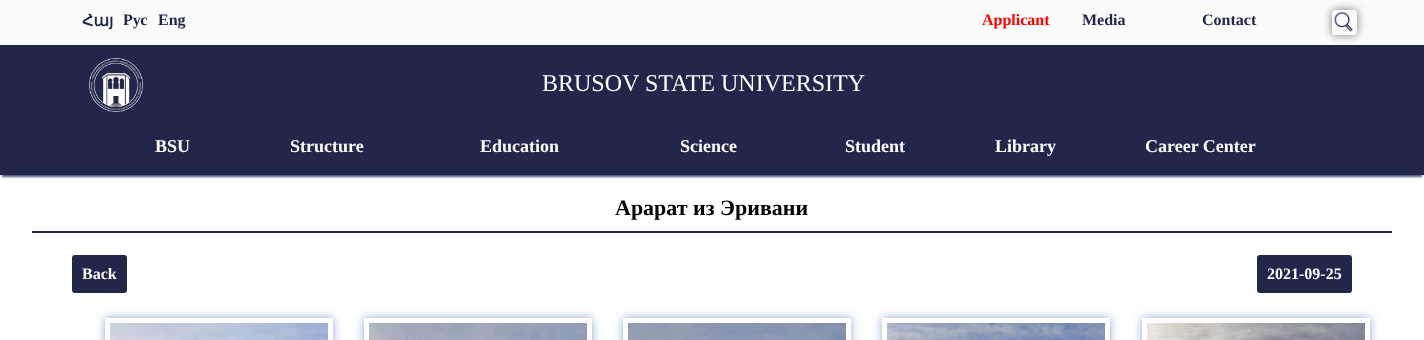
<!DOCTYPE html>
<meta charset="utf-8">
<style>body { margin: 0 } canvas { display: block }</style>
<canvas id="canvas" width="1424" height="340"></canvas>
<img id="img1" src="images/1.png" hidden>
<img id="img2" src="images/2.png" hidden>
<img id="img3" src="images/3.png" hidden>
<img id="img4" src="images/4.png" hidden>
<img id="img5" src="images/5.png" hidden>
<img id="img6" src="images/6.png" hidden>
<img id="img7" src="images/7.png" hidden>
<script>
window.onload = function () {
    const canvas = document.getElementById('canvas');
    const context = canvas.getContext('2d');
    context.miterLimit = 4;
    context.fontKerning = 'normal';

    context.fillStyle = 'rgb(255, 255, 255)';
    context.fillRect(0, 0, 1424, 340);
    context.fillStyle = 'rgb(251, 251, 251)';
    context.fillRect(0, 0, 1424, 45);
    context.fillStyle = 'rgb(34, 38, 75)';
    context.fillRect(0, 45, 1424, 80);
    context.save();
    context.beginPath();
    context.moveTo(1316, 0);
    context.lineTo(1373, 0);
    context.lineTo(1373, 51);
    context.lineTo(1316, 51);
    context.closePath();
    context.moveTo(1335, 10);
    context.lineTo(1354, 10);
    context.bezierCurveTo(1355.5, 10, 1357, 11.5, 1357, 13);
    context.lineTo(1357, 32);
    context.bezierCurveTo(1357, 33.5, 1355.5, 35, 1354, 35);
    context.lineTo(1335, 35);
    context.bezierCurveTo(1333.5, 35, 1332, 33.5, 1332, 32);
    context.lineTo(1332, 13);
    context.bezierCurveTo(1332, 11.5, 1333.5, 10, 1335, 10);
    context.closePath();
    context.clip('evenodd');
    context.fillStyle = 'rgba(0, 0, 0, 0.5)';
    context.filter = 'blur(5px)';
    context.beginPath();
    context.roundRect(1332, 10, 25, 25, 3);
    context.fill();
    context.filter = 'none';
    context.restore();
    context.drawImage(document.getElementById('img1'), 1334, 11, 19, 21);
    context.drawImage(document.getElementById('img2'), 89, 58, 54, 54);
    context.fillStyle = 'rgb(67, 83, 126)';
    context.filter = 'blur(1px)';
    context.beginPath();
    context.rect(2, 131, 1420, 46);
    context.fill();
    context.filter = 'none';
    context.fillStyle = 'rgb(34, 38, 75)';
    context.fillRect(0, 125, 1424, 50);
    context.fillRect(32, 231, 1360, 2);
    context.beginPath();
    context.roundRect(72, 255, 55, 38, 3);
    context.fill();
    context.beginPath();
    context.roundRect(1257, 255, 95, 38, 3);
    context.fill();
    context.save();
    context.beginPath();
    context.moveTo(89, 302);
    context.lineTo(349, 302);
    context.lineTo(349, 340);
    context.lineTo(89, 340);
    context.closePath();
    context.moveTo(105, 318);
    context.lineTo(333, 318);
    context.lineTo(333, 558);
    context.lineTo(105, 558);
    context.closePath();
    context.clip('evenodd');
    context.fillStyle = 'rgba(25, 83, 170, 0.5)';
    context.filter = 'blur(5px)';
    context.beginPath();
    context.rect(105, 318, 228, 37);
    context.fill();
    context.filter = 'none';
    context.restore();
    context.drawImage(document.getElementById('img3'), 110, 323, 218, 17);
    context.save();
    context.beginPath();
    context.moveTo(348, 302);
    context.lineTo(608, 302);
    context.lineTo(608, 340);
    context.lineTo(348, 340);
    context.closePath();
    context.moveTo(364, 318);
    context.lineTo(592, 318);
    context.lineTo(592, 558);
    context.lineTo(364, 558);
    context.closePath();
    context.clip('evenodd');
    context.fillStyle = 'rgba(25, 83, 170, 0.5)';
    context.filter = 'blur(5px)';
    context.beginPath();
    context.rect(364, 318, 228, 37);
    context.fill();
    context.filter = 'none';
    context.restore();
    context.drawImage(document.getElementById('img4'), 369, 323, 218, 17);
    context.save();
    context.beginPath();
    context.moveTo(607, 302);
    context.lineTo(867, 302);
    context.lineTo(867, 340);
    context.lineTo(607, 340);
    context.closePath();
    context.moveTo(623, 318);
    context.lineTo(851, 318);
    context.lineTo(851, 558);
    context.lineTo(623, 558);
    context.closePath();
    context.clip('evenodd');
    context.fillStyle = 'rgba(25, 83, 170, 0.5)';
    context.filter = 'blur(5px)';
    context.beginPath();
    context.rect(623, 318, 228, 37);
    context.fill();
    context.filter = 'none';
    context.restore();
    context.drawImage(document.getElementById('img5'), 628, 323, 218, 17);
    context.save();
    context.beginPath();
    context.moveTo(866, 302);
    context.lineTo(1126, 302);
    context.lineTo(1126, 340);
    context.lineTo(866, 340);
    context.closePath();
    context.moveTo(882, 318);
    context.lineTo(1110, 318);
    context.lineTo(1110, 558);
    context.lineTo(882, 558);
    context.closePath();
    context.clip('evenodd');
    context.fillStyle = 'rgba(25, 83, 170, 0.5)';
    context.filter = 'blur(5px)';
    context.beginPath();
    context.rect(882, 318, 228, 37);
    context.fill();
    context.filter = 'none';
    context.restore();
    context.drawImage(document.getElementById('img6'), 887, 323, 218, 17);
    context.save();
    context.beginPath();
    context.moveTo(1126, 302);
    context.lineTo(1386, 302);
    context.lineTo(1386, 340);
    context.lineTo(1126, 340);
    context.closePath();
    context.moveTo(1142, 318);
    context.lineTo(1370, 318);
    context.lineTo(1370, 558);
    context.lineTo(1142, 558);
    context.closePath();
    context.clip('evenodd');
    context.fillStyle = 'rgba(25, 83, 170, 0.5)';
    context.filter = 'blur(5px)';
    context.beginPath();
    context.rect(1142, 318, 228, 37);
    context.fill();
    context.filter = 'none';
    context.restore();
    context.drawImage(document.getElementById('img7'), 1147, 323, 218, 17);
    context.font = 'bold 16px DejaVu Sans';
    context.fillText('Հայ', 82, 26);
    context.font = 'bold 16px Liberation Serif';
    context.fillText('Рус', 123, 25);
    context.fillText('Eng', 158, 25);
    context.fillStyle = 'rgb(255, 0, 0)';
    context.fillText('Applicant', 982, 25);
    context.fillStyle = 'rgb(34, 38, 75)';
    context.fillText('Media', 1082, 25);
    context.fillText('Contact', 1202, 25);
    context.font = '24px Liberation Serif';
    context.fillStyle = 'rgb(254, 254, 254)';
    context.fillText('BRUSOV STATE UNIVERSITY', 542, 91);
    context.font = 'bold 18px Liberation Serif';
    context.fillText('BSU', 155, 152);
    context.fillText('Structure', 290, 152);
    context.fillText('Education', 480, 152);
    context.fillText('Science', 680, 152);
    context.fillText('Student', 845, 152);
    context.fillText('Library', 995, 152);
    context.fillText('Career Center', 1145, 152);
    context.font = 'bold 22px Liberation Serif';
    context.fillStyle = 'rgb(0, 0, 0)';
    context.fillText('Арарат из Эривани', 615, 215);
    context.font = 'bold 16px Liberation Serif';
    context.fillStyle = 'rgb(254, 254, 254)';
    context.fillText('Back', 82, 279);
    context.fillText('2021-09-25', 1267, 279);
};
</script>
